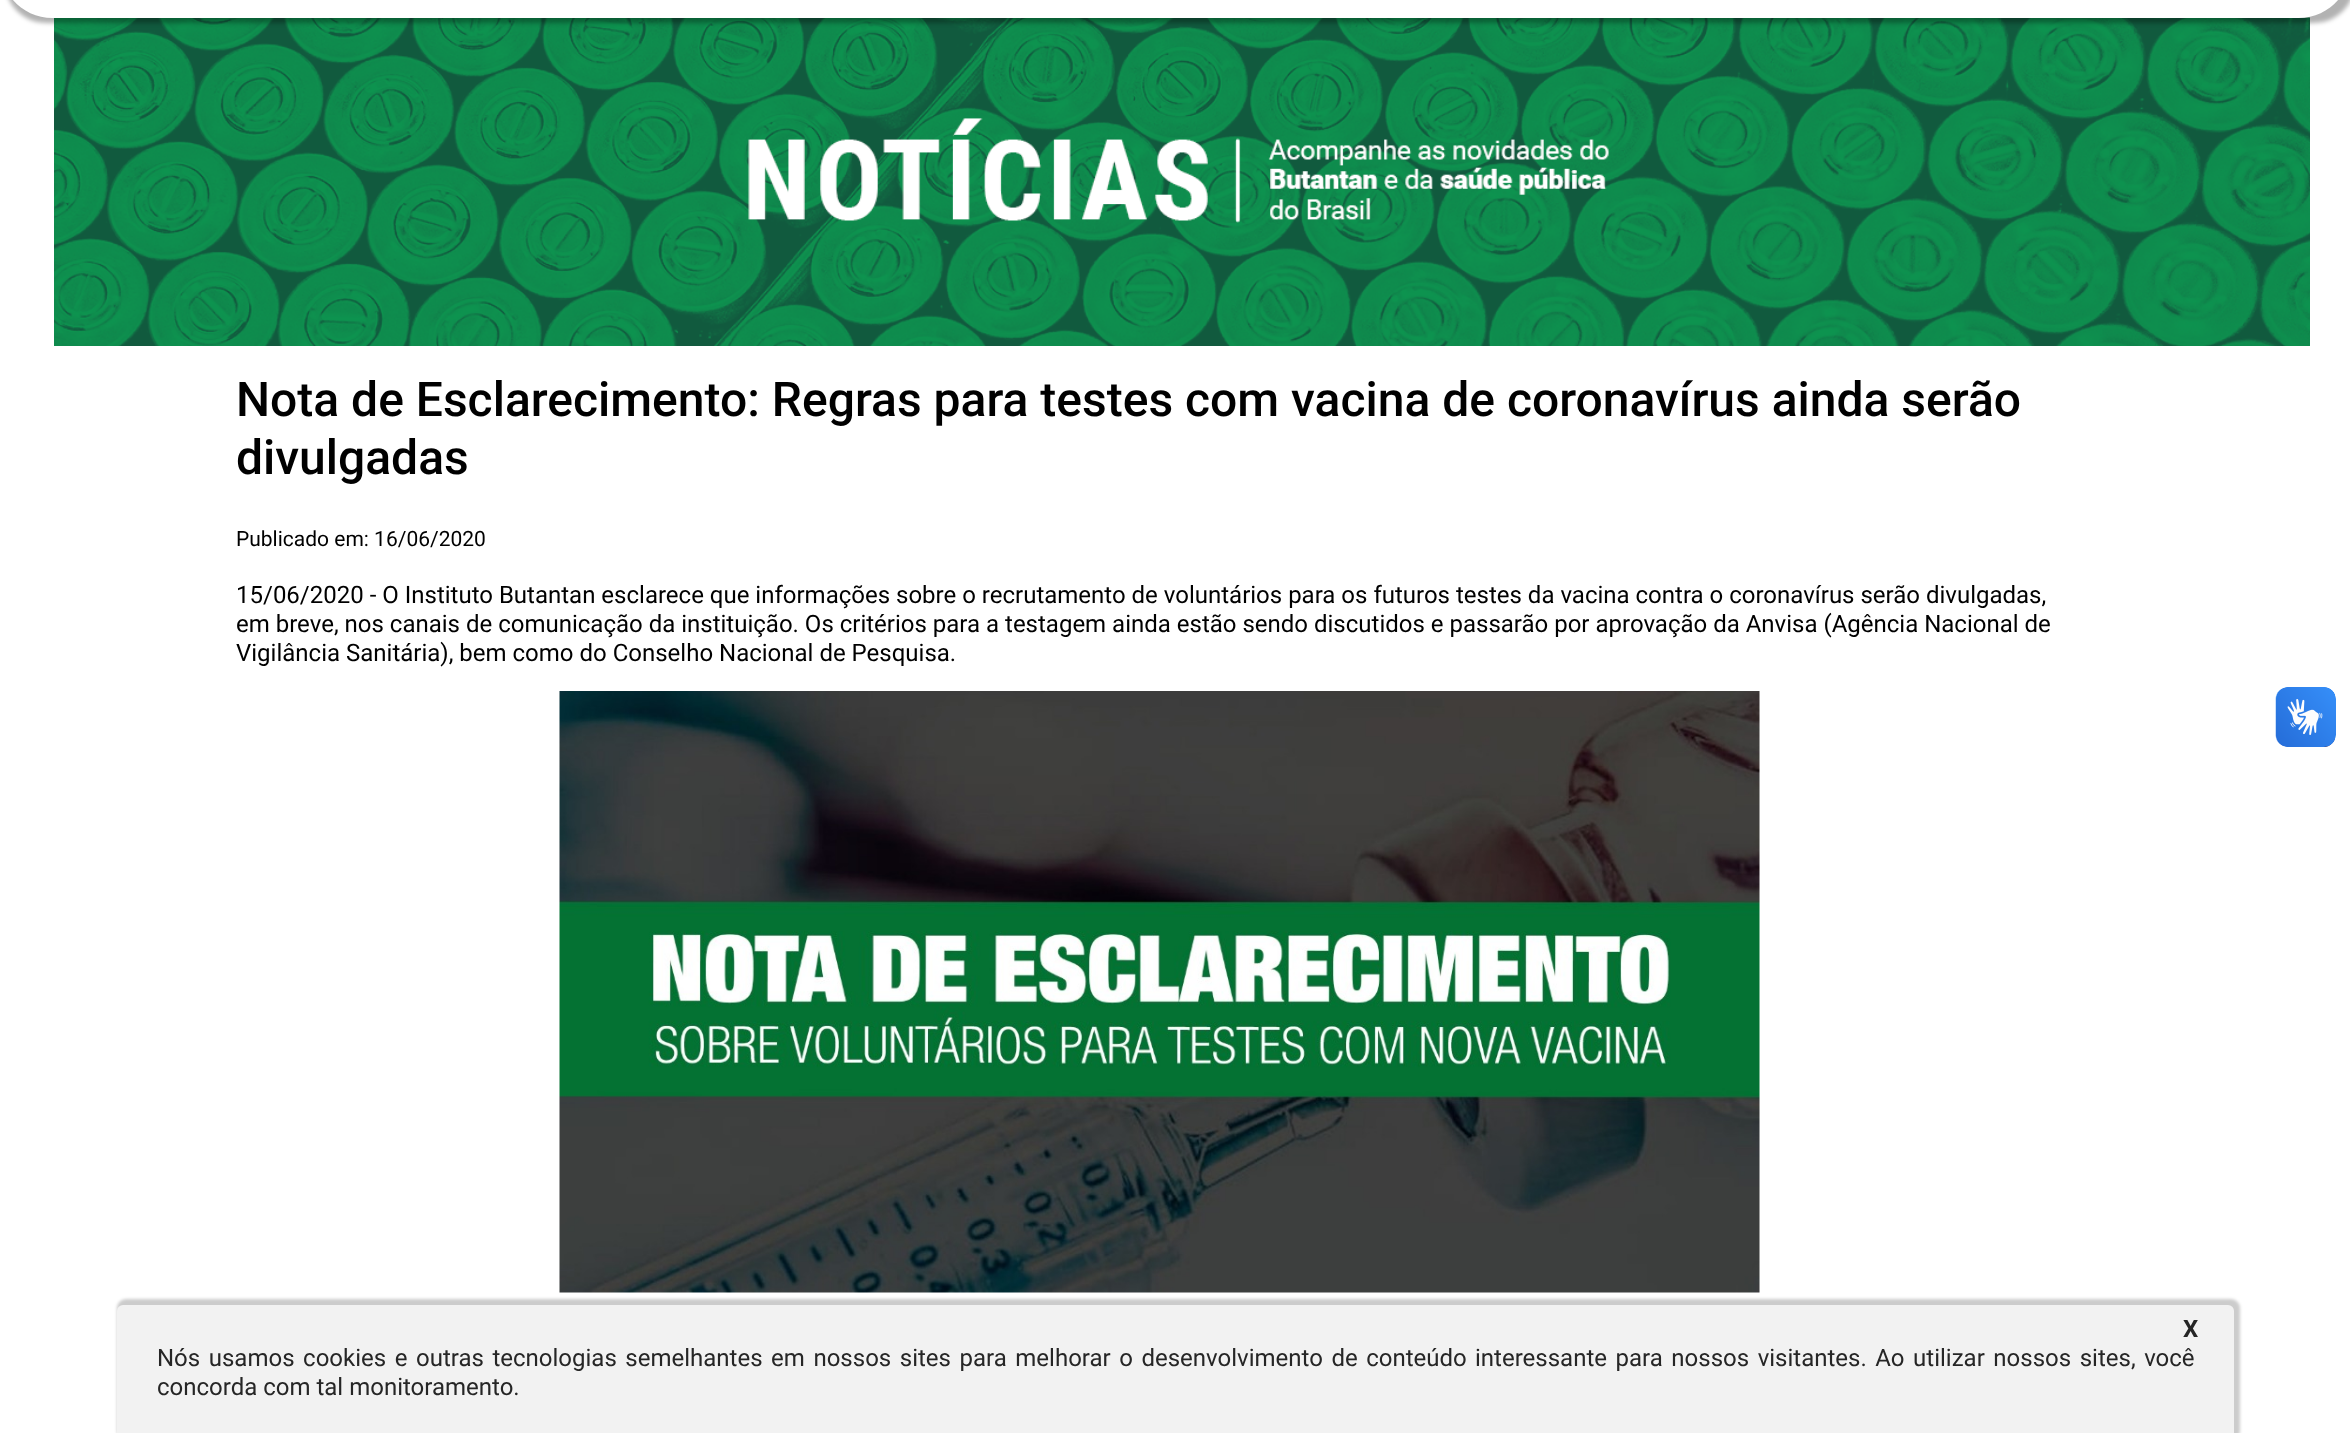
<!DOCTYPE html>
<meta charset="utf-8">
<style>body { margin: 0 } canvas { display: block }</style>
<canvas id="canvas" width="2350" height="1433"></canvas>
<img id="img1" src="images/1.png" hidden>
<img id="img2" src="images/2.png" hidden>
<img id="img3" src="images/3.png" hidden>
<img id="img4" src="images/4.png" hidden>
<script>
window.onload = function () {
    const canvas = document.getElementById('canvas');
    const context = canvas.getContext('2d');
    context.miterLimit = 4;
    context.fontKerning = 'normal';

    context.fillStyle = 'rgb(255, 255, 255)';
    context.fillRect(0, 0, 2350, 1433);
    context.drawImage(document.getElementById('img1'), 54, 17, 2256, 329);
    context.fillStyle = 'rgba(0, 0, 0, 0.3)';
    context.filter = 'blur(2px)';
    context.beginPath();
    context.roundRect(5, -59, 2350, 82, 52.5);
    context.fill();
    context.filter = 'none';
    context.fillStyle = 'rgb(255, 255, 255)';
    context.beginPath();
    context.moveTo(0, -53);
    context.lineTo(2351, -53);
    context.lineTo(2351, -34.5);
    context.bezierCurveTo(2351, -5.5, 2327.5, 18, 2298.5, 18);
    context.lineTo(52.5, 18);
    context.bezierCurveTo(23.5, 18, 0, -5.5, 0, -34.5);
    context.closePath();
    context.fill();
    context.drawImage(document.getElementById('img2'), 559, 691, 1201, 602);
    context.drawImage(document.getElementById('img3'), 2275, 687, 61, 60);
    context.drawImage(document.getElementById('img4'), 2276, 687, 60, 60);
    context.fillStyle = 'rgba(0, 0, 0, 0.2)';
    context.filter = 'blur(1.5px)';
    context.beginPath();
    context.roundRect(117, 1299, 2123, 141, 9);
    context.fill();
    context.filter = 'none';
    context.fillStyle = 'rgb(242, 242, 242)';
    context.beginPath();
    context.roundRect(117, 1305, 2117, 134, 6);
    context.fill();
    context.font = '500 48px Roboto';
    context.fillStyle = 'rgb(0, 0, 0)';
    context.fillText('Nota de Esclarecimento: Regras para testes com vacina de coronavírus ainda serão', 236, 416);
    context.fillText('divulgadas', 236, 474);
    context.font = '21px Roboto';
    context.fillText('Publicado em: 16/06/2020', 236, 546);
    context.font = '24px Roboto';
    context.fillText('15/06/2020 - O Instituto Butantan esclarece que informações sobre o recrutamento de voluntários para os futuros testes da vacina contra o coronavírus serão divulgadas,', 236, 603);
    context.fillText('em breve, nos canais de comunicação da instituição. Os critérios para a testagem ainda estão sendo discutidos e passarão por aprovação da Anvisa (Agência Nacional de', 236, 632);
    context.fillText('Vigilância Sanitária), bem como do Conselho Nacional de Pesquisa.', 236, 661);
    context.font = 'bold 24px Roboto';
    context.fillStyle = 'rgb(38, 38, 38)';
    context.fillText('X', 2183, 1337);
    context.wordSpacing = '2.6px';
    context.font = '24px Roboto';
    context.fillText('Nós usamos cookies e outras tecnologias semelhantes em nossos sites para melhorar o desenvolvimento de conteúdo', 157, 1366);
    context.fillText('interessante para nossos visitantes. Ao utilizar nossos sites, você', 1475, 1366);
    context.wordSpacing = '0px';
    context.fillText('concorda com tal monitoramento.', 157, 1395);
};
</script>
